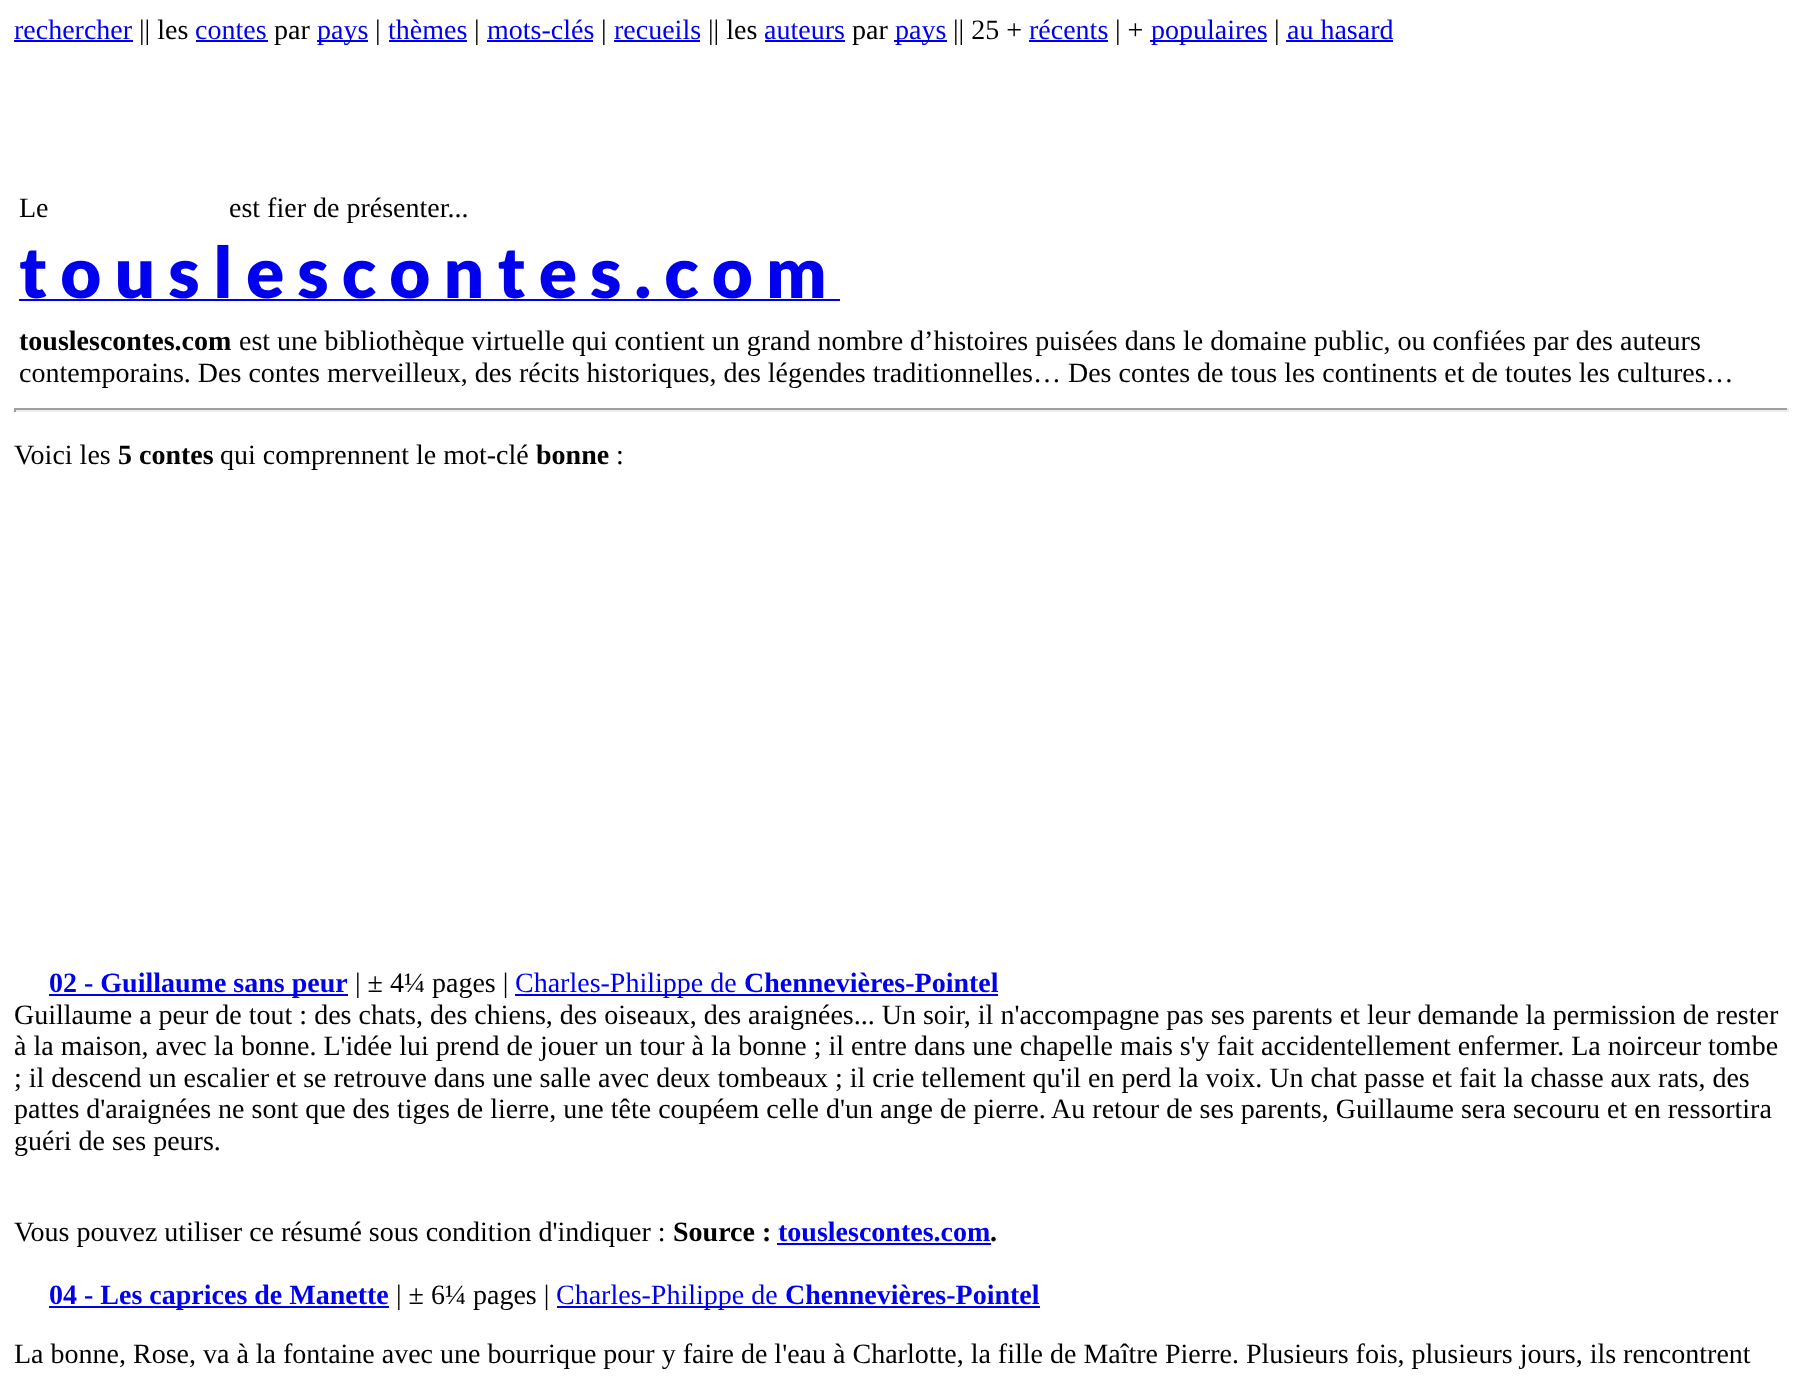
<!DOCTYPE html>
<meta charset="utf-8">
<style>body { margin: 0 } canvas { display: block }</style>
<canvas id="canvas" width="1802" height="1387"></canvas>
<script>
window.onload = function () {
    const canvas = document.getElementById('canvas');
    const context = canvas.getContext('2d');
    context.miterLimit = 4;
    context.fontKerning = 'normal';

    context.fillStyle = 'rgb(255, 255, 255)';
    context.fillRect(0, 0, 1802, 1387);
    context.fillStyle = 'rgb(0, 0, 238)';
    context.fillRect(14, 40, 119, 2);
    context.fillRect(196, 40, 72, 2);
    context.fillRect(317, 40, 51, 2);
    context.fillRect(389, 40, 78, 2);
    context.fillRect(487, 40, 106, 2);
    context.fillRect(614, 40, 86, 2);
    context.fillRect(765, 40, 80, 2);
    context.fillRect(894, 40, 53, 2);
    context.fillRect(1029, 40, 79, 2);
    context.fillRect(1150, 40, 117, 2);
    context.fillRect(1286, 40, 107, 2);
    context.fillRect(19, 299, 821, 2);
    context.fillStyle = 'rgb(159, 159, 159)';
    context.fillRect(14, 408, 1775, 2);
    context.fillStyle = 'rgb(238, 238, 238)';
    context.fillRect(1787, 408, 2, 4);
    context.fillRect(14, 410, 1775, 2);
    context.fillStyle = 'rgb(159, 159, 159)';
    context.fillRect(14, 408, 2, 4);
    context.fillStyle = 'rgb(0, 0, 238)';
    context.fillRect(49, 994, 299, 2);
    context.fillRect(515, 994, 483, 2);
    context.fillRect(777, 1243, 214, 2);
    context.fillRect(49, 1306, 340, 2);
    context.fillRect(557, 1306, 483, 2);
    context.font = '28px Liberation Serif';
    context.fillText('rechercher', 14, 39);
    context.fillStyle = 'rgb(0, 0, 0)';
    context.fillText('|| les', 139, 39);
    context.fillStyle = 'rgb(0, 0, 238)';
    context.fillText('contes', 195, 39);
    context.fillStyle = 'rgb(0, 0, 0)';
    context.fillText('par', 274, 39);
    context.fillStyle = 'rgb(0, 0, 238)';
    context.fillText('pays', 317, 39);
    context.fillStyle = 'rgb(0, 0, 0)';
    context.fillText('|', 375, 39);
    context.fillStyle = 'rgb(0, 0, 238)';
    context.fillText('thèmes', 388, 39);
    context.fillStyle = 'rgb(0, 0, 0)';
    context.fillText('|', 474, 39);
    context.fillStyle = 'rgb(0, 0, 238)';
    context.fillText('mots-clés', 487, 39);
    context.fillStyle = 'rgb(0, 0, 0)';
    context.fillText('|', 601, 39);
    context.fillStyle = 'rgb(0, 0, 238)';
    context.fillText('recueils', 614, 39);
    context.fillStyle = 'rgb(0, 0, 0)';
    context.fillText('|| les', 708, 39);
    context.fillStyle = 'rgb(0, 0, 238)';
    context.fillText('auteurs', 764, 39);
    context.fillStyle = 'rgb(0, 0, 0)';
    context.fillText('par', 852, 39);
    context.fillStyle = 'rgb(0, 0, 238)';
    context.fillText('pays', 895, 39);
    context.fillStyle = 'rgb(0, 0, 0)';
    context.fillText('|| 25 +', 953, 39);
    context.fillStyle = 'rgb(0, 0, 238)';
    context.fillText('récents', 1029, 39);
    context.fillStyle = 'rgb(0, 0, 0)';
    context.fillText('| +', 1115, 39);
    context.fillStyle = 'rgb(0, 0, 238)';
    context.fillText('populaires', 1151, 39);
    context.fillStyle = 'rgb(0, 0, 0)';
    context.fillText('|', 1274, 39);
    context.fillStyle = 'rgb(0, 0, 238)';
    context.fillText('au hasard', 1287, 39);
    context.fillStyle = 'rgb(0, 0, 0)';
    context.fillText('Le', 19, 217);
    context.fillText('est fier de présenter...', 229, 217);
    context.letterSpacing = '13px';
    context.font = '900 70.9px Lato';
    context.fillStyle = 'rgb(0, 0, 238)';
    context.fillText('touslescontes.com', 19, 298);
    context.letterSpacing = '0px';
    context.font = 'bold 28px Liberation Serif';
    context.fillStyle = 'rgb(0, 0, 0)';
    context.fillText('touslescontes.com', 19, 350);
    context.font = '28px Liberation Serif';
    context.fillText('est une bibliothèque virtuelle qui contient un grand nombre d’histoires puisées dans le domaine public, ou confiées par des auteurs', 239, 350);
    context.fillText('contemporains. Des contes merveilleux, des récits historiques, des légendes traditionnelles… Des contes de tous les continents et de toutes les cultures…', 19, 382);
    context.fillText('Voici les', 14, 464);
    context.font = 'bold 28px Liberation Serif';
    context.fillText('5 contes', 118, 464);
    context.font = '28px Liberation Serif';
    context.fillText('qui comprennent le mot-clé', 220, 464);
    context.font = 'bold 28px Liberation Serif';
    context.fillText('bonne', 536, 464);
    context.font = '28px Liberation Serif';
    context.fillText(':', 616, 464);
    context.font = 'bold 28px Liberation Serif';
    context.fillStyle = 'rgb(0, 0, 238)';
    context.fillText('02 - Guillaume sans peur', 49, 992);
    context.font = '28px Liberation Serif';
    context.fillStyle = 'rgb(0, 0, 0)';
    context.fillText('| ± 4¼ pages |', 355, 992);
    context.fillStyle = 'rgb(0, 0, 238)';
    context.fillText('Charles-Philippe de', 515, 992);
    context.font = 'bold 28px Liberation Serif';
    context.fillText('Chennevières-Pointel', 744, 992);
    context.font = '28px Liberation Serif';
    context.fillStyle = 'rgb(0, 0, 0)';
    context.fillText('Guillaume a peur de tout : des chats, des chiens, des oiseaux, des araignées... Un soir, il n\'accompagne pas ses parents et leur demande la permission de rester', 14, 1024);
    context.fillText('à la maison, avec la bonne. L\'idée lui prend de jouer un tour à la bonne ; il entre dans une chapelle mais s\'y fait accidentellement enfermer. La noirceur tombe', 14, 1055);
    context.fillText('; il descend un escalier et se retrouve dans une salle avec deux tombeaux ; il crie tellement qu\'il en perd la voix. Un chat passe et fait la chasse aux rats, des', 14, 1087);
    context.fillText('pattes d\'araignées ne sont que des tiges de lierre, une tête coupéem celle d\'un ange de pierre. Au retour de ses parents, Guillaume sera secouru et en ressortira', 14, 1118);
    context.fillText('guéri de ses peurs.', 14, 1150);
    context.fillText('Vous pouvez utiliser ce résumé sous condition d\'indiquer :', 14, 1241);
    context.font = 'bold 28px Liberation Serif';
    context.fillText('Source :', 673, 1241);
    context.fillStyle = 'rgb(0, 0, 238)';
    context.fillText('touslescontes.com', 778, 1241);
    context.fillStyle = 'rgb(0, 0, 0)';
    context.fillText('.', 990, 1241);
    context.fillStyle = 'rgb(0, 0, 238)';
    context.fillText('04 - Les caprices de Manette', 49, 1304);
    context.font = '28px Liberation Serif';
    context.fillStyle = 'rgb(0, 0, 0)';
    context.fillText('| ± 6¼ pages |', 396, 1304);
    context.fillStyle = 'rgb(0, 0, 238)';
    context.fillText('Charles-Philippe de', 556, 1304);
    context.font = 'bold 28px Liberation Serif';
    context.fillText('Chennevières-Pointel', 785, 1304);
    context.font = '28px Liberation Serif';
    context.fillStyle = 'rgb(0, 0, 0)';
    context.fillText('La bonne, Rose, va à la fontaine avec une bourrique pour y faire de l\'eau à Charlotte, la fille de Maître Pierre. Plusieurs fois, plusieurs jours, ils rencontrent', 14, 1363);
};
</script>
